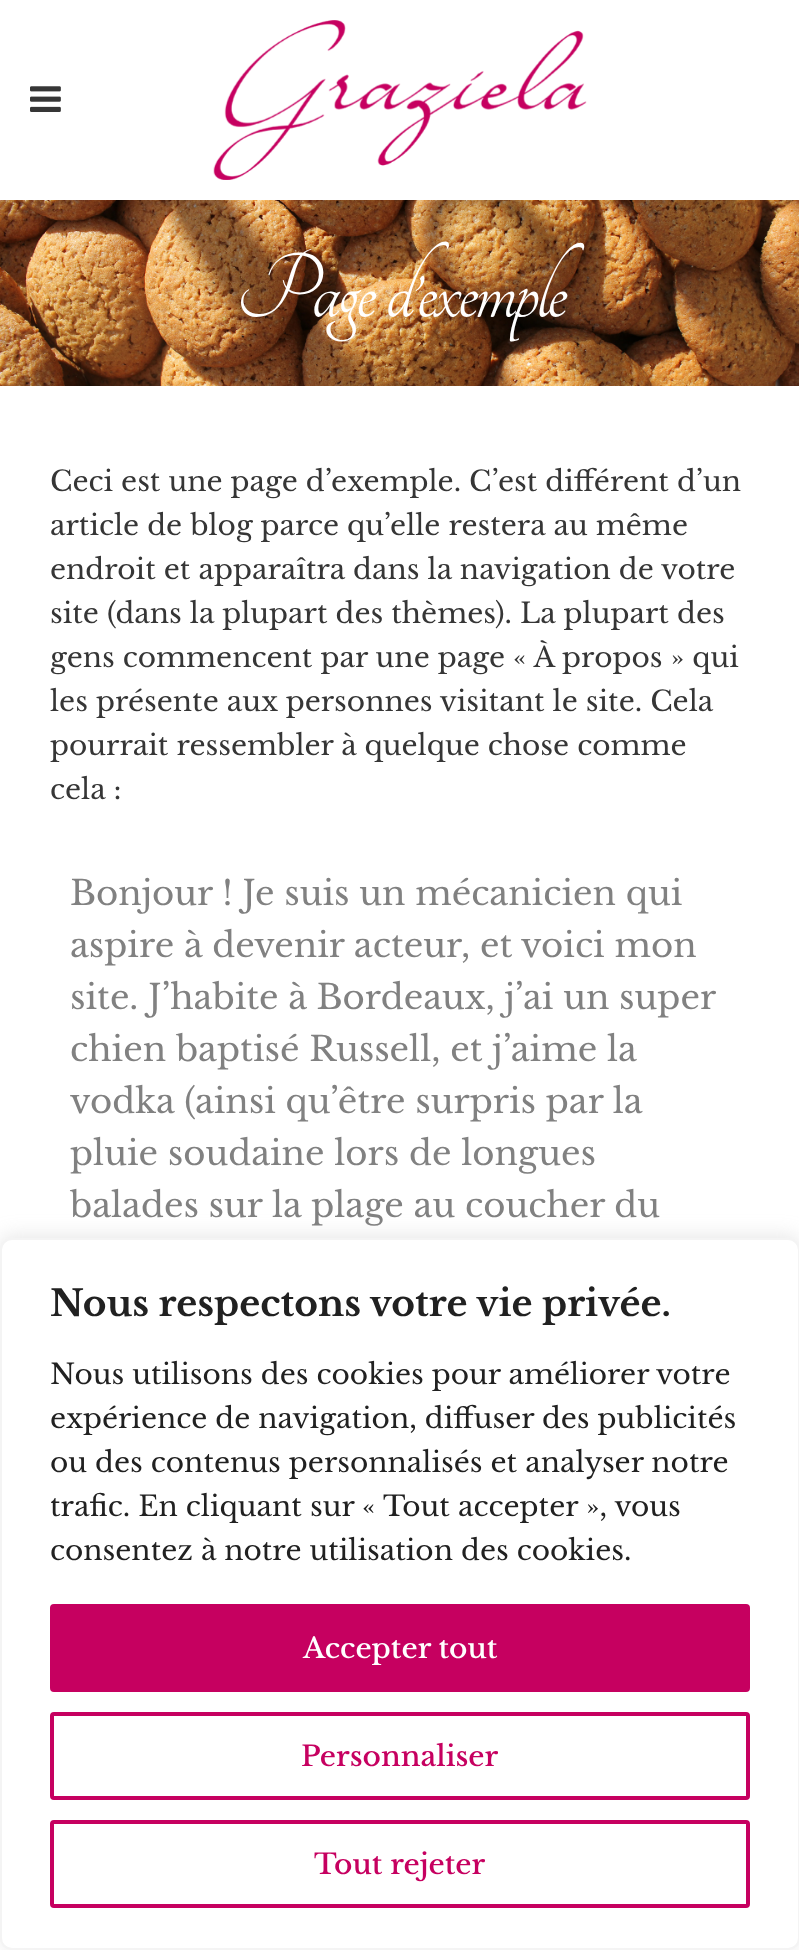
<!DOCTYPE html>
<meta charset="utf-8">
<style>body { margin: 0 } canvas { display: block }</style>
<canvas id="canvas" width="799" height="1950"></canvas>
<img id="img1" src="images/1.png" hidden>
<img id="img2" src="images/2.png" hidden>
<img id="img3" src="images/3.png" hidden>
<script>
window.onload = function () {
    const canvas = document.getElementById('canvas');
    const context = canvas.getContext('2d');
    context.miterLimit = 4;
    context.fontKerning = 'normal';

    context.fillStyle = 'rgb(255, 255, 255)';
    context.fillRect(0, 0, 799, 1950);
    context.drawImage(document.getElementById('img1'), 30, 86, 31, 26);
    context.drawImage(document.getElementById('img2'), 213, 20, 374, 160);
    context.drawImage(document.getElementById('img3'), 0, 200, 799, 186);
    context.fillStyle = 'rgba(172, 171, 171, 0.3)';
    context.filter = 'blur(10px)';
    context.beginPath();
    context.roundRect(0, 1236, 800, 712, 12);
    context.fill();
    context.filter = 'none';
    context.fillStyle = 'rgb(255, 255, 255)';
    context.beginPath();
    context.roundRect(1, 1239, 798, 710, 11);
    context.fill();
    context.strokeStyle = 'rgb(244, 244, 244)';
    context.lineWidth = 2;
    context.stroke();
    context.fillStyle = 'rgb(198, 0, 96)';
    context.beginPath();
    context.roundRect(52, 1606, 696, 84, 2);
    context.fill();
    context.strokeStyle = 'rgb(198, 0, 96)';
    context.lineWidth = 4;
    context.stroke();
    context.beginPath();
    context.roundRect(52, 1714, 696, 84, 2);
    context.stroke();
    context.beginPath();
    context.roundRect(52, 1822, 696, 84, 2);
    context.stroke();
    context.letterSpacing = '-3px';
    context.font = '100px Tangerine';
    context.fillStyle = 'rgb(255, 255, 255)';
    context.fillText('Page d’exemple', 236, 317);
    context.letterSpacing = '0px';
    context.font = '28px Libre Baskerville';
    context.fillStyle = 'rgb(54, 54, 54)';
    context.fillText('Ceci est une page d’exemple. C’est différent d’un', 50, 491);
    context.fillText('article de blog parce qu’elle restera au même', 50, 535);
    context.fillText('endroit et apparaîtra dans la navigation de votre', 50, 579);
    context.fillText('site (dans la plupart des thèmes). La plupart des', 50, 623);
    context.fillText('gens commencent par une page « À propos » qui', 50, 667);
    context.fillText('les présente aux personnes visitant le site. Cela', 50, 711);
    context.fillText('pourrait ressembler à quelque chose comme', 50, 755);
    context.fillText('cela :', 50, 799);
    context.font = '34px Libre Baskerville';
    context.fillStyle = 'rgb(129, 129, 129)';
    context.fillText('Bonjour ! Je suis un mécanicien qui', 70, 905);
    context.fillText('aspire à devenir acteur, et voici mon', 70, 957);
    context.fillText('site. J’habite à Bordeaux, j’ai un super', 70, 1009);
    context.fillText('chien baptisé Russell, et j’aime la', 70, 1061);
    context.fillText('vodka (ainsi qu’être surpris par la', 70, 1113);
    context.fillText('pluie soudaine lors de longues', 70, 1165);
    context.fillText('balades sur la plage au coucher du', 70, 1217);
    context.font = 'bold 36px Libre Baskerville';
    context.fillStyle = 'rgb(33, 33, 33)';
    context.fillText('Nous respectons votre vie privée.', 50, 1316);
    context.font = '28px Libre Baskerville';
    context.fillText('Nous utilisons des cookies pour améliorer votre', 50, 1384);
    context.fillText('expérience de navigation, diffuser des publicités', 50, 1428);
    context.fillText('ou des contenus personnalisés et analyser notre', 50, 1472);
    context.fillText('trafic. En cliquant sur « Tout accepter », vous', 50, 1516);
    context.fillText('consentez à notre utilisation des cookies.', 50, 1560);
    context.font = '500 28px Libre Baskerville';
    context.fillStyle = 'rgb(255, 255, 255)';
    context.fillText('Accepter tout', 303, 1658);
    context.fillStyle = 'rgb(198, 0, 96)';
    context.fillText('Personnaliser', 301, 1766);
    context.fillText('Tout rejeter', 314, 1874);
};
</script>
